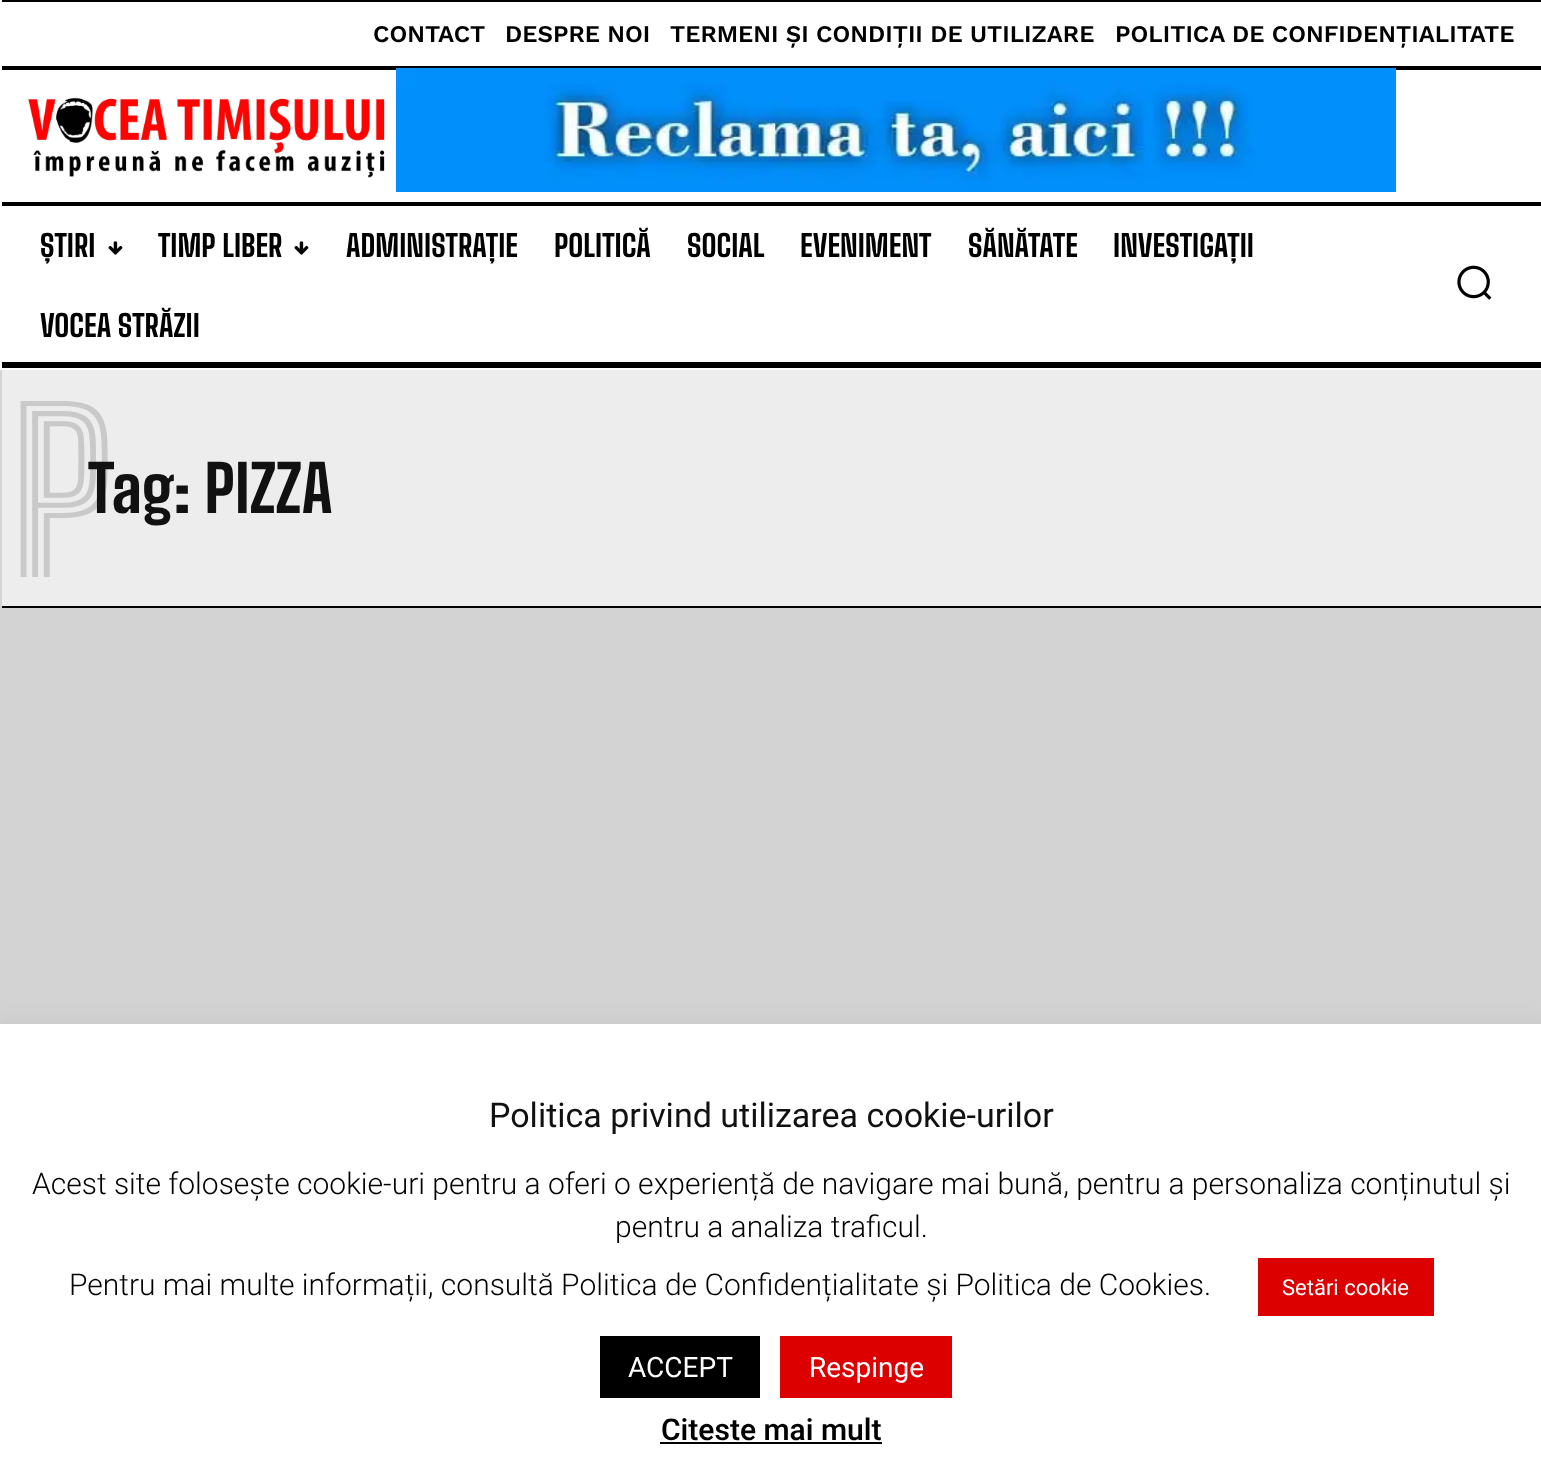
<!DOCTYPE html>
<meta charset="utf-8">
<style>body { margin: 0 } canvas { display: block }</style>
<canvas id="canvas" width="1541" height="1476"></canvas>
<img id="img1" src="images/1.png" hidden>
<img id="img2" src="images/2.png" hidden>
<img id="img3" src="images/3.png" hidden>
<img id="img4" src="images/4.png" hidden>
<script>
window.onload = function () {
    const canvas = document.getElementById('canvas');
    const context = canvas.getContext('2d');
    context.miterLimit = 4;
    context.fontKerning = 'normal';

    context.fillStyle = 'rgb(211, 211, 211)';
    context.fillRect(0, 0, 1541, 1476);
    context.fillStyle = 'rgb(255, 255, 255)';
    context.fillRect(0, 0, 1541, 370);
    context.fillStyle = 'rgb(0, 0, 0)';
    context.fillRect(2, 0, 1539, 2);
    context.fillRect(2, 66, 1539, 4);
    context.drawImage(document.getElementById('img1'), 28, 97, 357, 81);
    context.drawImage(document.getElementById('img2'), 396, 68, 1000, 124);
    context.fillRect(2, 202, 1539, 4);
    context.drawImage(document.getElementById('img3'), 108, 241, 15, 14);
    context.drawImage(document.getElementById('img3'), 294, 241, 15, 14);
    context.drawImage(document.getElementById('img4'), 1457, 265, 35, 35);
    context.fillRect(2, 362, 1539, 6);
    context.fillStyle = 'rgb(237, 237, 237)';
    context.fillRect(2, 370, 1539, 236);
    context.fillStyle = 'rgb(0, 0, 0)';
    context.fillRect(2, 606, 1539, 2);
    context.fillStyle = 'rgba(172, 171, 171, 0.3)';
    context.filter = 'blur(10px)';
    context.beginPath();
    context.rect(0, 1022, 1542, 452);
    context.fill();
    context.filter = 'none';
    context.fillStyle = 'rgb(255, 255, 255)';
    context.fillRect(0, 1024, 1541, 452);
    context.fillStyle = 'rgb(221, 0, 0)';
    context.fillRect(1258, 1258, 176, 58);
    context.fillStyle = 'rgb(0, 0, 0)';
    context.fillRect(600, 1336, 160, 62);
    context.fillStyle = 'rgb(221, 0, 0)';
    context.fillRect(780, 1336, 172, 62);
    context.fillStyle = 'rgb(0, 0, 0)';
    context.fillRect(660, 1442, 222, 2);
    context.font = '600 24px Work Sans';
    context.fillText('CONTACT', 373, 42);
    context.fillText('DESPRE NOI', 505, 42);
    context.fillText('TERMENI ȘI CONDIȚII DE UTILIZARE', 670, 42);
    context.fillText('POLITICA DE CONFIDENȚIALITATE', 1115, 42);
    context.font = '800 30px Big Shoulders Text';
    context.fillText('ȘTIRI', 40, 257);
    context.fillText('TIMP LIBER', 158, 257);
    context.fillText('ADMINISTRAȚIE', 346, 257);
    context.fillText('POLITICĂ', 554, 257);
    context.fillText('SOCIAL', 687, 257);
    context.fillText('EVENIMENT', 800, 257);
    context.fillText('SĂNĂTATE', 968, 257);
    context.fillText('INVESTIGAȚII', 1113, 257);
    context.fillText('VOCEA STRĂZII', 40, 337);
    context.font = '800 220px Big Shoulders Inline Text';
    context.fillStyle = 'rgb(201, 201, 201)';
    context.fillText('P', 9, 577);
    context.font = '800 64px Big Shoulders Text';
    context.fillStyle = 'rgb(17, 17, 17)';
    context.fillText('Tag: PIZZA', 88, 513);
    context.font = '34px Roboto';
    context.fillText('Politica privind utilizarea cookie-urilor', 489, 1127);
    context.font = '300 30px Roboto';
    context.fillStyle = 'rgb(0, 0, 0)';
    context.fillText('Acest site folosește cookie-uri pentru a oferi o experiență de navigare mai bună, pentru a personaliza conținutul și', 32, 1194);
    context.fillText('pentru a analiza traficul.', 615, 1237);
    context.fillText('Pentru mai multe informații, consultă Politica de Confidențialitate și Politica de Cookies.', 69, 1295);
    context.font = '22px Roboto';
    context.fillStyle = 'rgb(255, 255, 255)';
    context.fillText('Setări cookie', 1282, 1295);
    context.font = '28px Roboto';
    context.fillText('ACCEPT', 628, 1377);
    context.fillText('Respinge', 809, 1377);
    context.font = '500 30px Roboto';
    context.fillStyle = 'rgb(0, 0, 0)';
    context.fillText('Citeste mai mult', 661, 1440);
};
</script>
